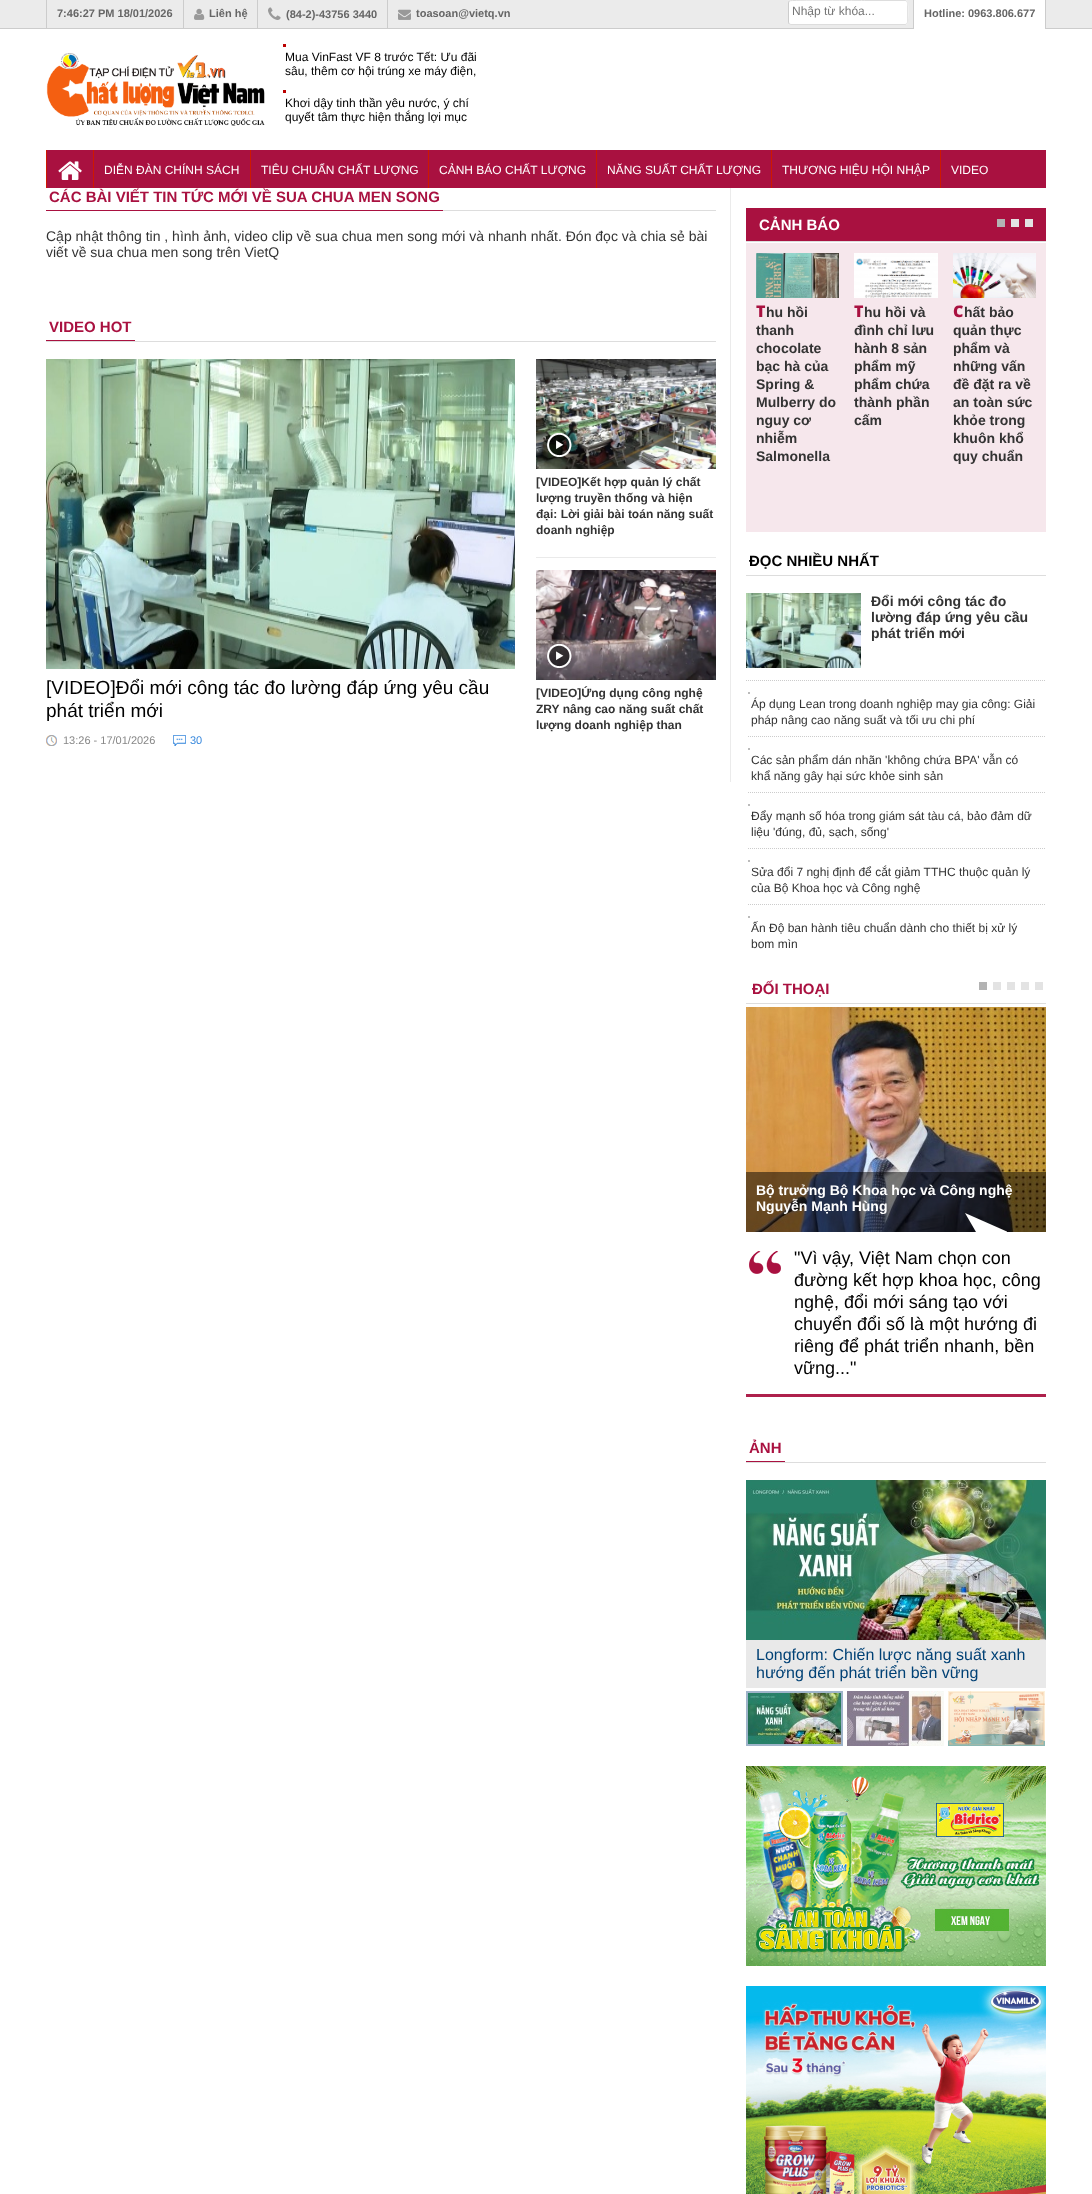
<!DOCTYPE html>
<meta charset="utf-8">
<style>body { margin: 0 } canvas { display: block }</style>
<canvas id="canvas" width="1092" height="2194"></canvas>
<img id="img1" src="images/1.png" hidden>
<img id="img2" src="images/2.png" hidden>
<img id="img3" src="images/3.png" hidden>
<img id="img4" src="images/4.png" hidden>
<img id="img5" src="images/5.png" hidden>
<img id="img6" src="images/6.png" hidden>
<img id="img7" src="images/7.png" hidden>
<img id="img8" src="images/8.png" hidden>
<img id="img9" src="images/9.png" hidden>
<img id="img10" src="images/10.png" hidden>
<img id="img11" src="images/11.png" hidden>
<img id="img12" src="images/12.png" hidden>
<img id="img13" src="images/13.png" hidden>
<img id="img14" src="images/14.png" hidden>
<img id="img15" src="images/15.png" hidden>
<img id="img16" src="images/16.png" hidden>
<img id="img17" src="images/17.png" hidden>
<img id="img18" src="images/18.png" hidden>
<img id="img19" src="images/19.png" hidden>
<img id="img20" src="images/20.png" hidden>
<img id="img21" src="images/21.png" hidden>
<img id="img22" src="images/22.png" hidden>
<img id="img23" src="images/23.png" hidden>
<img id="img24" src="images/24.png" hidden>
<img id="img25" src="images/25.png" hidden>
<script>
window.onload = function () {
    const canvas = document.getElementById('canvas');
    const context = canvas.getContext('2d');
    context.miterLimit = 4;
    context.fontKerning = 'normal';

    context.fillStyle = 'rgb(255, 255, 255)';
    context.fillRect(0, 0, 1092, 2194);
    context.fillStyle = 'rgb(235, 235, 235)';
    context.fillRect(0, 0, 1092, 28);
    context.fillStyle = 'rgb(204, 204, 204)';
    context.fillRect(0, 28, 1092, 1);
    context.fillRect(46, 0, 1, 28);
    context.fillRect(183, 0, 1, 28);
    context.drawImage(document.getElementById('img1'), 194, 8, 11, 12);
    context.fillRect(257, 0, 1, 28);
    context.drawImage(document.getElementById('img2'), 268, 7, 13, 13);
    context.fillRect(387, 0, 1, 28);
    context.drawImage(document.getElementById('img3'), 398, 9, 13, 11);
    context.fillStyle = 'rgb(255, 255, 255)';
    context.beginPath();
    context.roundRect(788, 0, 120, 25, 3);
    context.fill();
    context.beginPath();
    context.moveTo(789, 1);
    context.bezierCurveTo(791, -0.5, 859, 0.5, 867, 0.5);
    context.lineTo(905, 0.5);
    context.bezierCurveTo(908, 0.5, 907.5, 4, 907.5, 6);
    context.lineTo(907.5, 19);
    context.bezierCurveTo(907.5, 21, 908, 24.5, 905, 24.5);
    context.lineTo(791, 24.5);
    context.lineTo(789, 24);
    context.strokeStyle = 'rgb(221, 221, 221)';
    context.stroke();
    context.beginPath();
    context.moveTo(789, 24);
    context.bezierCurveTo(789, 23.5, 788.5, 22.5, 788.5, 22);
    context.lineTo(788.5, 3);
    context.bezierCurveTo(788.5, 2.5, 789, 1.5, 789, 1);
    context.strokeStyle = 'rgb(204, 204, 204)';
    context.stroke();
    context.fillStyle = 'rgba(255, 255, 255, 0.2)';
    context.beginPath();
    context.roundRect(789, 1, 120, 20, 5);
    context.fill();
    context.fillStyle = 'rgb(255, 255, 255)';
    context.fillRect(914, 0, 131, 29);
    context.fillStyle = 'rgb(204, 204, 204)';
    context.fillRect(1045, 0, 1, 29);
    context.fillRect(913, 0, 1, 29);
    context.drawImage(document.getElementById('img4'), 46, 53, 219, 73);
    context.fillStyle = 'rgb(187, 0, 0)';
    context.fillRect(283, 44, 3, 3);
    context.fillRect(283, 90, 3, 3);
    context.fillStyle = 'rgb(169, 17, 64)';
    context.fillRect(47, 150, 999, 38);
    context.fillStyle = 'rgb(206, 24, 0)';
    context.fillRect(46, 150, 1, 38);
    context.drawImage(document.getElementById('img5'), 58, 161, 24, 19);
    context.fillRect(93, 150, 1, 38);
    context.fillRect(250, 150, 1, 38);
    context.fillRect(428, 150, 1, 38);
    context.fillRect(596, 150, 1, 38);
    context.fillRect(771, 150, 1, 38);
    context.fillRect(940, 150, 1, 38);
    context.fillStyle = 'rgb(235, 235, 235)';
    context.fillRect(730, 188, 1, 594);
    context.fillStyle = 'rgb(221, 221, 221)';
    context.fillRect(443, 210, 273, 1);
    context.fillStyle = 'rgb(169, 17, 64)';
    context.fillRect(46, 210, 397, 1);
    context.fillStyle = 'rgb(221, 221, 221)';
    context.fillRect(46, 341, 670, 1);
    context.fillStyle = 'rgb(169, 17, 64)';
    context.fillRect(46, 340, 89, 1);
    context.fillStyle = 'rgb(234, 234, 234)';
    context.fillRect(536, 557, 180, 1);
    context.drawImage(document.getElementById('img6'), 536, 359, 180, 110);
    context.drawImage(document.getElementById('img7'), 547, 433, 25, 24);
    context.drawImage(document.getElementById('img8'), 46, 359, 469, 310);
    context.drawImage(document.getElementById('img9'), 46, 735, 11, 11);
    context.drawImage(document.getElementById('img10'), 173, 735, 13, 11);
    context.drawImage(document.getElementById('img11'), 536, 570, 180, 110);
    context.drawImage(document.getElementById('img12'), 547, 644, 25, 24);
    context.fillStyle = 'rgb(169, 17, 64)';
    context.fillRect(746, 208, 300, 33);
    context.fillStyle = 'rgb(221, 221, 221)';
    context.fillRect(746, 241, 300, 1);
    context.fillStyle = 'rgb(246, 231, 236)';
    context.fillRect(746, 243, 300, 289);
    context.fillStyle = 'rgb(179, 179, 179)';
    context.fillRect(997, 219, 8, 8);
    context.fillStyle = 'rgb(227, 227, 227)';
    context.fillRect(1011, 219, 8, 8);
    context.fillRect(1025, 219, 8, 8);
    context.drawImage(document.getElementById('img13'), 756, 253, 83, 45);
    context.drawImage(document.getElementById('img14'), 854, 253, 84, 45);
    context.drawImage(document.getElementById('img15'), 953, 253, 83, 45);
    context.fillStyle = 'rgb(221, 221, 221)';
    context.fillRect(746, 575, 300, 1);
    context.beginPath();
    context.moveTo(746, 680.5);
    context.lineTo(1046, 680.5);
    context.setLineDash([1, 1]);
    context.stroke();
    context.drawImage(document.getElementById('img16'), 746, 593, 115, 75);
    context.beginPath();
    context.moveTo(748, 736.5);
    context.lineTo(1046, 736.5);
    context.stroke();
    context.fillStyle = 'rgb(187, 187, 187)';
    context.fillRect(748, 692, 2, 2);
    context.beginPath();
    context.moveTo(748, 792.5);
    context.lineTo(1046, 792.5);
    context.stroke();
    context.fillRect(748, 748, 2, 2);
    context.beginPath();
    context.moveTo(748, 848.5);
    context.lineTo(1046, 848.5);
    context.stroke();
    context.fillRect(748, 804, 2, 2);
    context.beginPath();
    context.moveTo(748, 904.5);
    context.lineTo(1046, 904.5);
    context.stroke();
    context.fillRect(748, 860, 2, 2);
    context.fillRect(748, 916, 2, 2);
    context.fillStyle = 'rgb(221, 221, 221)';
    context.fillRect(746, 1003, 300, 1);
    context.fillStyle = 'rgb(179, 179, 179)';
    context.fillRect(979, 982, 8, 8);
    context.fillStyle = 'rgb(227, 227, 227)';
    context.fillRect(993, 982, 8, 8);
    context.fillRect(1007, 982, 8, 8);
    context.fillRect(1021, 982, 8, 8);
    context.fillRect(1035, 982, 8, 8);
    context.drawImage(document.getElementById('img17'), 746, 1007, 300, 225);
    context.fillStyle = 'rgba(0, 0, 0, 0.5)';
    context.fillRect(746, 1172, 300, 60);
    context.drawImage(document.getElementById('img18'), 749, 1251, 32, 23);
    context.fillStyle = 'rgb(174, 32, 76)';
    context.fillRect(746, 1394, 300, 3);
    context.drawImage(document.getElementById('img19'), 965, 1213, 42, 19);
    context.fillStyle = 'rgb(221, 221, 221)';
    context.fillRect(746, 1462, 300, 1);
    context.fillStyle = 'rgb(169, 17, 64)';
    context.fillRect(746, 1461, 39, 1);
    context.fillStyle = 'rgb(233, 233, 233)';
    context.fillRect(746, 1640, 300, 48);
    context.drawImage(document.getElementById('img20'), 746, 1480, 300, 160);
    context.fillStyle = 'rgb(159, 180, 202)';
    context.fillRect(746, 1691, 97, 55);
    context.drawImage(document.getElementById('img21'), 748, 1693, 93, 51);
    context.drawImage(document.getElementById('img22'), 847, 1691, 97, 55);
    context.drawImage(document.getElementById('img23'), 948, 1691, 97, 55);
    context.drawImage(document.getElementById('img24'), 746, 1766, 300, 200);
    context.drawImage(document.getElementById('img25'), 746, 1986, 300, 208);
    context.font = 'bold 11px Liberation Sans';
    context.fillStyle = 'rgb(102, 102, 102)';
    context.fillText('7:46:27 PM 18/01/2026', 57, 17);
    context.fillText('Liên hệ', 209, 17);
    context.fillText('(84-2)-43756 3440', 286, 18);
    context.fillText('toasoan@vietq.vn', 416, 17);
    context.font = '12px Liberation Sans';
    context.fillStyle = 'rgb(117, 117, 117)';
    context.fillText('Nhập từ khóa...', 792, 15);
    context.font = 'bold 11px Liberation Sans';
    context.fillStyle = 'rgb(102, 102, 102)';
    context.fillText('Hotline: 0963.806.677', 924, 17);
    context.font = '12px Liberation Sans';
    context.fillStyle = 'rgb(0, 0, 0)';
    context.fillText('Mua VinFast VF 8 trước Tết: Ưu đãi', 285, 61);
    context.fillText('sâu, thêm cơ hội trúng xe máy điện,', 285, 75);
    context.fillText('Khơi dậy tinh thần yêu nước, ý chí', 285, 107);
    context.fillText('quyết tâm thực hiện thắng lợi mục', 285, 121);
    context.fillStyle = 'rgb(255, 255, 255)';
    context.fillText('DIỄN ĐÀN CHÍNH SÁCH', 104, 174);
    context.fillText('TIÊU CHUẨN CHẤT LƯỢNG', 261, 174);
    context.fillText('CẢNH BÁO CHẤT LƯỢNG', 439, 174);
    context.fillText('NĂNG SUẤT CHẤT LƯỢNG', 607, 174);
    context.fillText('THƯƠNG HIỆU HỘI NHẬP', 782, 174);
    context.fillText('VIDEO', 951, 174);
    context.font = 'bold 15px Liberation Sans';
    context.fillStyle = 'rgb(169, 17, 64)';
    context.fillText('CÁC BÀI VIẾT TIN TỨC MỚI VỀ SUA CHUA MEN SONG', 49, 202);
    context.font = '14px Liberation Sans';
    context.fillStyle = 'rgb(51, 51, 51)';
    context.fillText('Cập nhật thông tin , hình ảnh, video clip về sua chua men song mới và nhanh nhất. Đón đọc và chia sẻ bài', 46, 241);
    context.fillText('viết về sua chua men song trên VietQ', 46, 257);
    context.font = 'bold 15px Liberation Sans';
    context.fillStyle = 'rgb(169, 17, 64)';
    context.fillText('VIDEO HOT', 49, 332);
    context.font = 'bold 12px Liberation Sans';
    context.fillStyle = 'rgb(51, 51, 51)';
    context.fillText('[VIDEO]Kết hợp quản lý chất', 536, 486);
    context.fillText('lượng truyền thống và hiện', 536, 502);
    context.fillText('đại: Lời giải bài toán năng suất', 536, 518);
    context.fillText('doanh nghiệp', 536, 534);
    context.font = '19px Liberation Sans';
    context.fillStyle = 'rgb(0, 0, 0)';
    context.fillText('[VIDEO]Đổi mới công tác đo lường đáp ứng yêu cầu', 46, 694);
    context.fillText('phát triển mới', 46, 717);
    context.font = '11px Liberation Sans';
    context.fillStyle = 'rgb(136, 136, 136)';
    context.fillText('13:26 - 17/01/2026', 63, 744);
    context.fillStyle = 'rgb(57, 137, 221)';
    context.fillText('30', 190, 744);
    context.font = 'bold 12px Liberation Sans';
    context.fillStyle = 'rgb(51, 51, 51)';
    context.fillText('[VIDEO]Ứng dụng công nghệ', 536, 697);
    context.fillText('ZRY nâng cao năng suất chất', 536, 713);
    context.fillText('lượng doanh nghiệp than', 536, 729);
    context.font = 'bold 15px Liberation Sans';
    context.fillStyle = 'rgb(255, 255, 255)';
    context.fillText('CẢNH BÁO', 759, 230);
    context.font = '900 16px Noto Sans';
    context.fillStyle = 'rgb(169, 17, 64)';
    context.fillText('T', 756, 317);
    context.font = 'bold 14px Liberation Sans';
    context.fillStyle = 'rgb(51, 51, 51)';
    context.fillText('hu hồi', 766, 317);
    context.fillText('thanh', 756, 335);
    context.fillText('chocolate', 756, 353);
    context.fillText('bạc hà của', 756, 371);
    context.fillText('Spring &', 756, 389);
    context.fillText('Mulberry do', 756, 407);
    context.fillText('nguy cơ', 756, 425);
    context.fillText('nhiễm', 756, 443);
    context.fillText('Salmonella', 756, 461);
    context.font = '900 16px Noto Sans';
    context.fillStyle = 'rgb(169, 17, 64)';
    context.fillText('T', 854, 317);
    context.font = 'bold 14px Liberation Sans';
    context.fillStyle = 'rgb(51, 51, 51)';
    context.fillText('hu hồi và', 864, 317);
    context.fillText('đình chỉ lưu', 854, 335);
    context.fillText('hành 8 sản', 854, 353);
    context.fillText('phẩm mỹ', 854, 371);
    context.fillText('phẩm chứa', 854, 389);
    context.fillText('thành phần', 854, 407);
    context.fillText('cấm', 854, 425);
    context.font = '900 16px Noto Sans';
    context.fillStyle = 'rgb(169, 17, 64)';
    context.fillText('C', 953, 317);
    context.font = 'bold 14px Liberation Sans';
    context.fillStyle = 'rgb(51, 51, 51)';
    context.fillText('hất bảo', 964, 317);
    context.fillText('quản thực', 953, 335);
    context.fillText('phẩm và', 953, 353);
    context.fillText('những vấn', 953, 371);
    context.fillText('đề đặt ra về', 953, 389);
    context.fillText('an toàn sức', 953, 407);
    context.fillText('khỏe trong', 953, 425);
    context.fillText('khuôn khổ', 953, 443);
    context.fillText('quy chuẩn', 953, 461);
    context.font = 'bold 15px Liberation Sans';
    context.fillStyle = 'rgb(0, 0, 0)';
    context.fillText('ĐỌC NHIỀU NHẤT', 749, 566);
    context.font = 'bold 14px Liberation Sans';
    context.fillStyle = 'rgb(51, 51, 51)';
    context.fillText('Đổi mới công tác đo', 871, 606);
    context.fillText('lường đáp ứng yêu cầu', 871, 622);
    context.fillText('phát triển mới', 871, 638);
    context.font = '12px Liberation Sans';
    context.fillText('Áp dụng Lean trong doanh nghiệp may gia công: Giải', 751, 708);
    context.fillText('pháp nâng cao năng suất và tối ưu chi phí', 751, 724);
    context.fillText('Các sản phẩm dán nhãn \'không chứa BPA\' vẫn có', 751, 764);
    context.fillText('khẩ năng gây hại sức khỏe sinh sản', 751, 780);
    context.fillText('Đẩy mạnh số hóa trong giám sát tàu cá, bảo đảm dữ', 751, 820);
    context.fillText('liệu \'đúng, đủ, sạch, sống\'', 751, 836);
    context.fillText('Sửa đổi 7 nghị định để cắt giảm TTHC thuộc quản lý', 751, 876);
    context.fillText('của Bộ Khoa học và Công nghệ', 751, 892);
    context.fillText('Ấn Độ ban hành tiêu chuẩn dành cho thiết bị xử lý', 751, 932);
    context.fillText('bom mìn', 751, 948);
    context.font = 'bold 15px Liberation Sans';
    context.fillStyle = 'rgb(169, 17, 64)';
    context.fillText('ĐỐI THOẠI', 752, 994);
    context.font = 'bold 14px Liberation Sans';
    context.fillStyle = 'rgb(255, 255, 255)';
    context.fillText('Bộ trưởng Bộ Khoa học và Công nghệ', 756, 1195);
    context.fillText('Nguyễn Mạnh Hùng', 756, 1211);
    context.font = '18px Liberation Sans';
    context.fillStyle = 'rgb(0, 0, 0)';
    context.fillText('"Vì vậy, Việt Nam chọn con', 794, 1264);
    context.fillText('đường kết hợp khoa học, công', 794, 1286);
    context.fillText('nghệ, đổi mới sáng tạo với', 794, 1308);
    context.fillText('chuyển đổi số là một hướng đi', 794, 1330);
    context.fillText('riêng để phát triển nhanh, bền', 794, 1352);
    context.fillText('vững..."', 794, 1374);
    context.font = 'bold 15px Liberation Sans';
    context.fillStyle = 'rgb(169, 17, 64)';
    context.fillText('ẢNH', 749, 1453);
    context.font = '16px Liberation Sans';
    context.fillStyle = 'rgb(0, 65, 117)';
    context.fillText('Longform: Chiến lược năng suất xanh', 756, 1660);
    context.fillText('hướng đến phát triển bền vững', 756, 1678);
};
</script>
